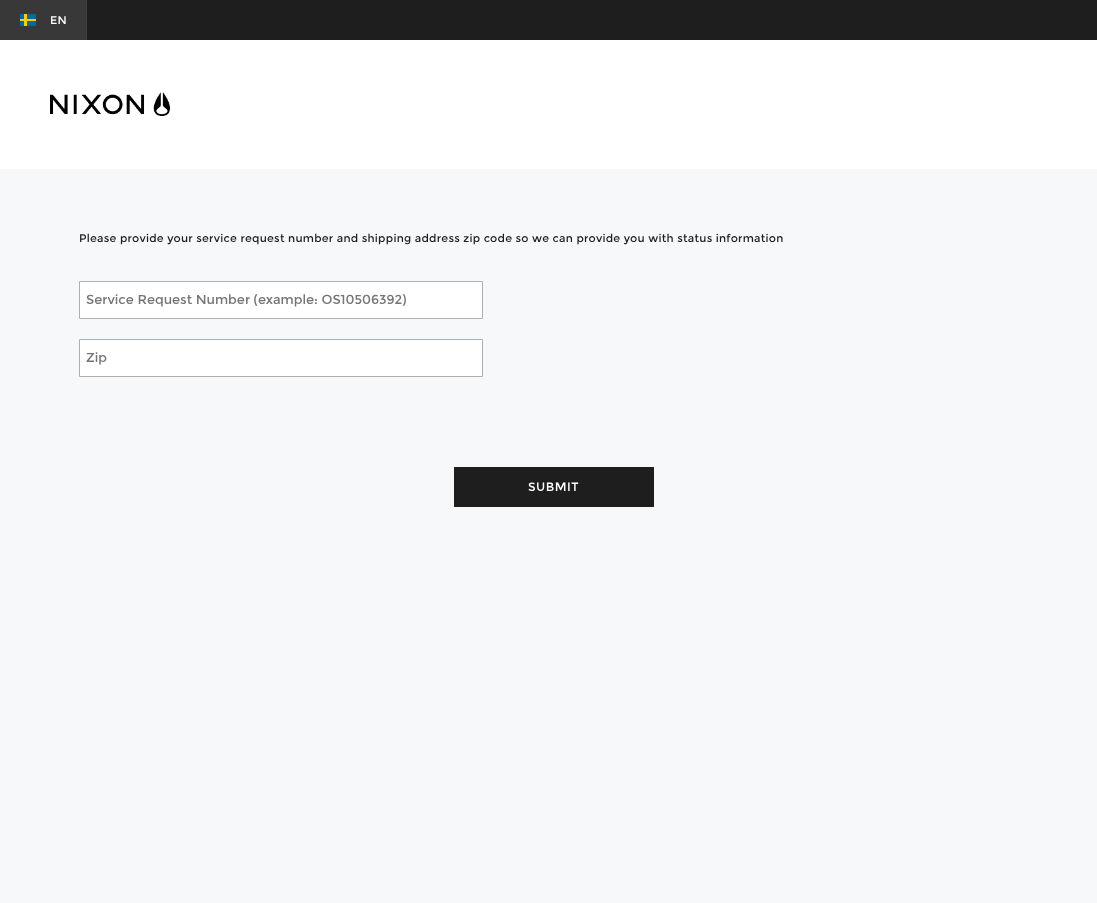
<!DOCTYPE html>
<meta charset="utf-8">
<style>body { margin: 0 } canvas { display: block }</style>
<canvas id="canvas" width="1097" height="903"></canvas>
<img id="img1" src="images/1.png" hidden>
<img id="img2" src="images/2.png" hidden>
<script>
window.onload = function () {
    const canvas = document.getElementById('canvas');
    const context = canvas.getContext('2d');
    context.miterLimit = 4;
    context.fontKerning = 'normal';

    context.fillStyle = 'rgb(247, 248, 249)';
    context.fillRect(0, 0, 1097, 903);
    context.fillStyle = 'rgb(255, 255, 255)';
    context.fillRect(0, 40, 1097, 129);
    context.fillStyle = 'rgb(30, 30, 30)';
    context.fillRect(87, 0, 1010, 40);
    context.fillStyle = 'rgb(56, 56, 56)';
    context.fillRect(0, 0, 86, 40);
    context.fillStyle = 'rgb(63, 63, 63)';
    context.fillRect(86, 0, 1, 40);
    context.drawImage(document.getElementById('img1'), 20, 14, 16, 12);
    context.drawImage(document.getElementById('img2'), 50, 92, 120, 24);
    context.fillStyle = 'rgb(255, 255, 255)';
    context.beginPath();
    context.rect(79.5, 281.5, 403, 37);
    context.fill();
    context.strokeStyle = 'rgb(172, 177, 180)';
    context.stroke();
    context.beginPath();
    context.rect(79.5, 339.5, 403, 37);
    context.fill();
    context.stroke();
    context.fillStyle = 'rgb(30, 30, 30)';
    context.fillRect(454, 467, 200, 40);
    context.letterSpacing = '0.25px';
    context.font = '11px Montserrat';
    context.fillStyle = 'rgb(255, 255, 255)';
    context.fillText('EN', 50, 24);
    context.fillStyle = 'rgb(30, 30, 30)';
    context.fillText('Please provide your service request number and shipping address zip code so we can provide you with status information', 79, 242);
    context.letterSpacing = '0px';
    context.font = '13px Montserrat';
    context.fillStyle = 'rgb(117, 117, 117)';
    context.fillText('Service Request Number (example: OS10506392)', 86, 304);
    context.fillText('Zip', 86, 362);
    context.letterSpacing = '0.5px';
    context.font = '12px Montserrat';
    context.fillStyle = 'rgb(255, 255, 255)';
    context.fillText('SUBMIT', 528, 491);
};
</script>
